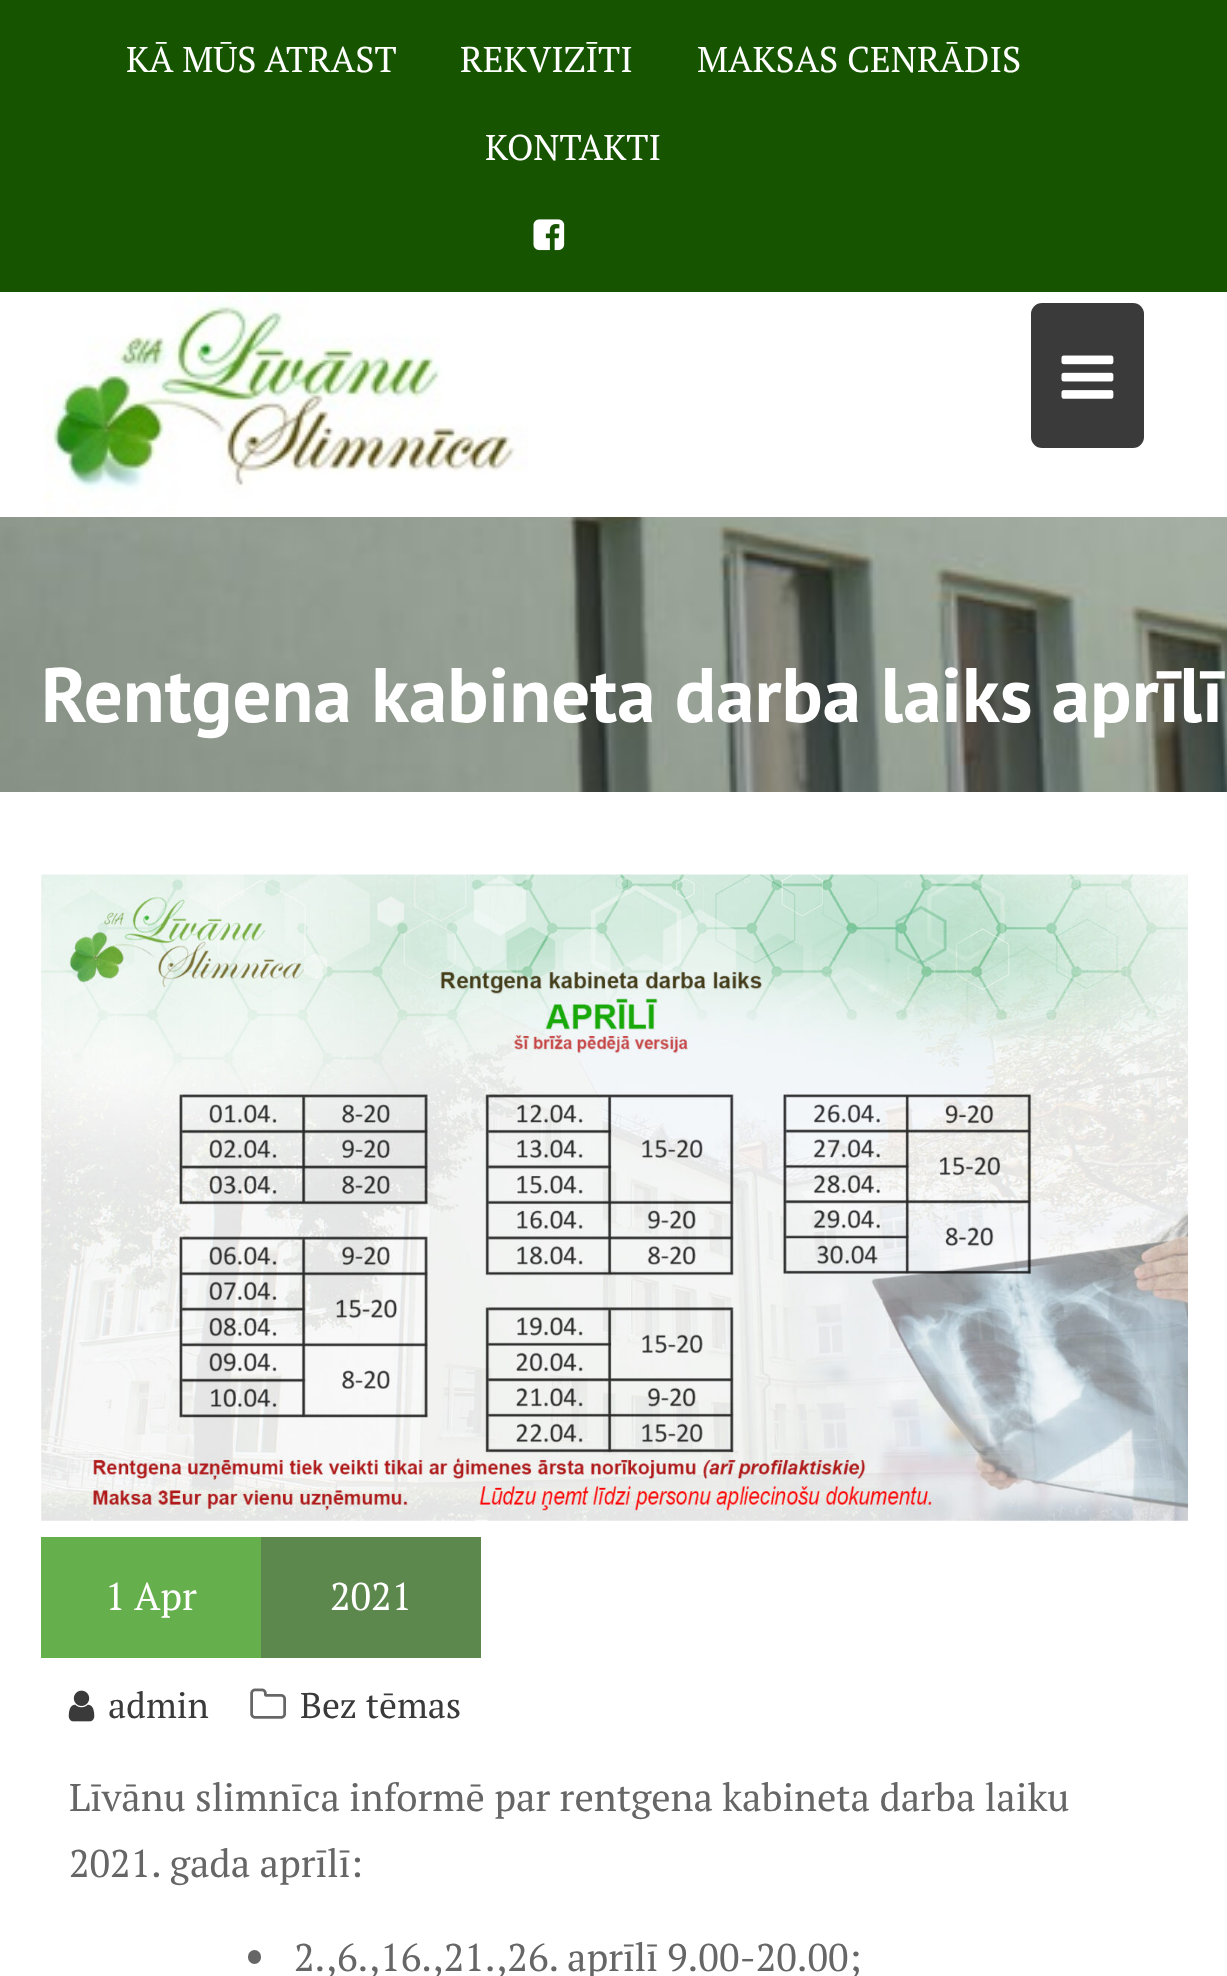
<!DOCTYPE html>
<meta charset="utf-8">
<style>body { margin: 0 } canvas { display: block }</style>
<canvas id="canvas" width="1227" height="1976"></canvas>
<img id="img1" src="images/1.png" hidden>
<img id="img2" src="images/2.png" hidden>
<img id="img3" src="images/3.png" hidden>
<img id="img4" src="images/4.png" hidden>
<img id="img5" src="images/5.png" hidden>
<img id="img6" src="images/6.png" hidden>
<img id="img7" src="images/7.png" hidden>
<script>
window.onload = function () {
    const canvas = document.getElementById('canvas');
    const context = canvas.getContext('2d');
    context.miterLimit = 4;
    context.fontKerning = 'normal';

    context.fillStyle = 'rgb(255, 255, 255)';
    context.fillRect(0, 0, 1227, 1976);
    context.fillStyle = 'rgb(22, 84, 0)';
    context.fillRect(0, 0, 1227, 292);
    context.drawImage(document.getElementById('img1'), 533, 219, 32, 32);
    context.drawImage(document.getElementById('img2'), 44, 294, 484, 220);
    context.fillStyle = 'rgb(58, 58, 58)';
    context.beginPath();
    context.roundRect(1031, 303, 113, 145, 11);
    context.fill();
    context.drawImage(document.getElementById('img3'), 1061, 355, 53, 44);
    context.drawImage(document.getElementById('img4'), 0, 517, 1227, 275);
    context.drawImage(document.getElementById('img5'), 41, 874, 1147, 647);
    context.fillStyle = 'rgb(102, 175, 77)';
    context.fillRect(41, 1537, 220, 121);
    context.fillStyle = 'rgb(92, 135, 77)';
    context.fillRect(261, 1537, 220, 121);
    context.drawImage(document.getElementById('img6'), 68, 1690, 27, 32);
    context.drawImage(document.getElementById('img7'), 250, 1688, 36, 31);
    context.fillStyle = 'rgb(102, 102, 102)';
    context.beginPath();
    context.roundRect(248, 1950, 13, 14, 6.5);
    context.fill();
    context.font = '35.75px PT Serif';
    context.fillStyle = 'rgb(255, 255, 255)';
    context.fillText('KĀ MŪS ATRAST', 126, 72);
    context.fillText('REKVIZĪTI', 460, 72);
    context.fillText('MAKSAS CENRĀDIS', 697, 72);
    context.fillText('KONTAKTI', 485, 160);
    context.font = 'bold 77px PT Sans';
    context.fillText('Rentgena kabineta darba laiks aprīlī', 41, 722);
    context.font = '38.5px PT Serif';
    context.fillText('1', 105, 1610);
    context.fillText('Apr', 134, 1610);
    context.fillText('2021', 330, 1610);
    context.font = '35.75px PT Serif';
    context.fillStyle = 'rgb(58, 58, 58)';
    context.fillText('admin', 108, 1718);
    context.fillText('Bez tēmas', 300, 1718);
    context.font = '38.5px PT Serif';
    context.fillStyle = 'rgb(102, 102, 102)';
    context.fillText('Līvānu slimnīca informē par rentgena kabineta darba laiku', 69, 1811);
    context.fillText('2021. gada aprīlī:', 69, 1877);
    context.fillText('2.,6.,16.,21.,26. aprīlī 9.00-20.00;', 294, 1971);
};
</script>
